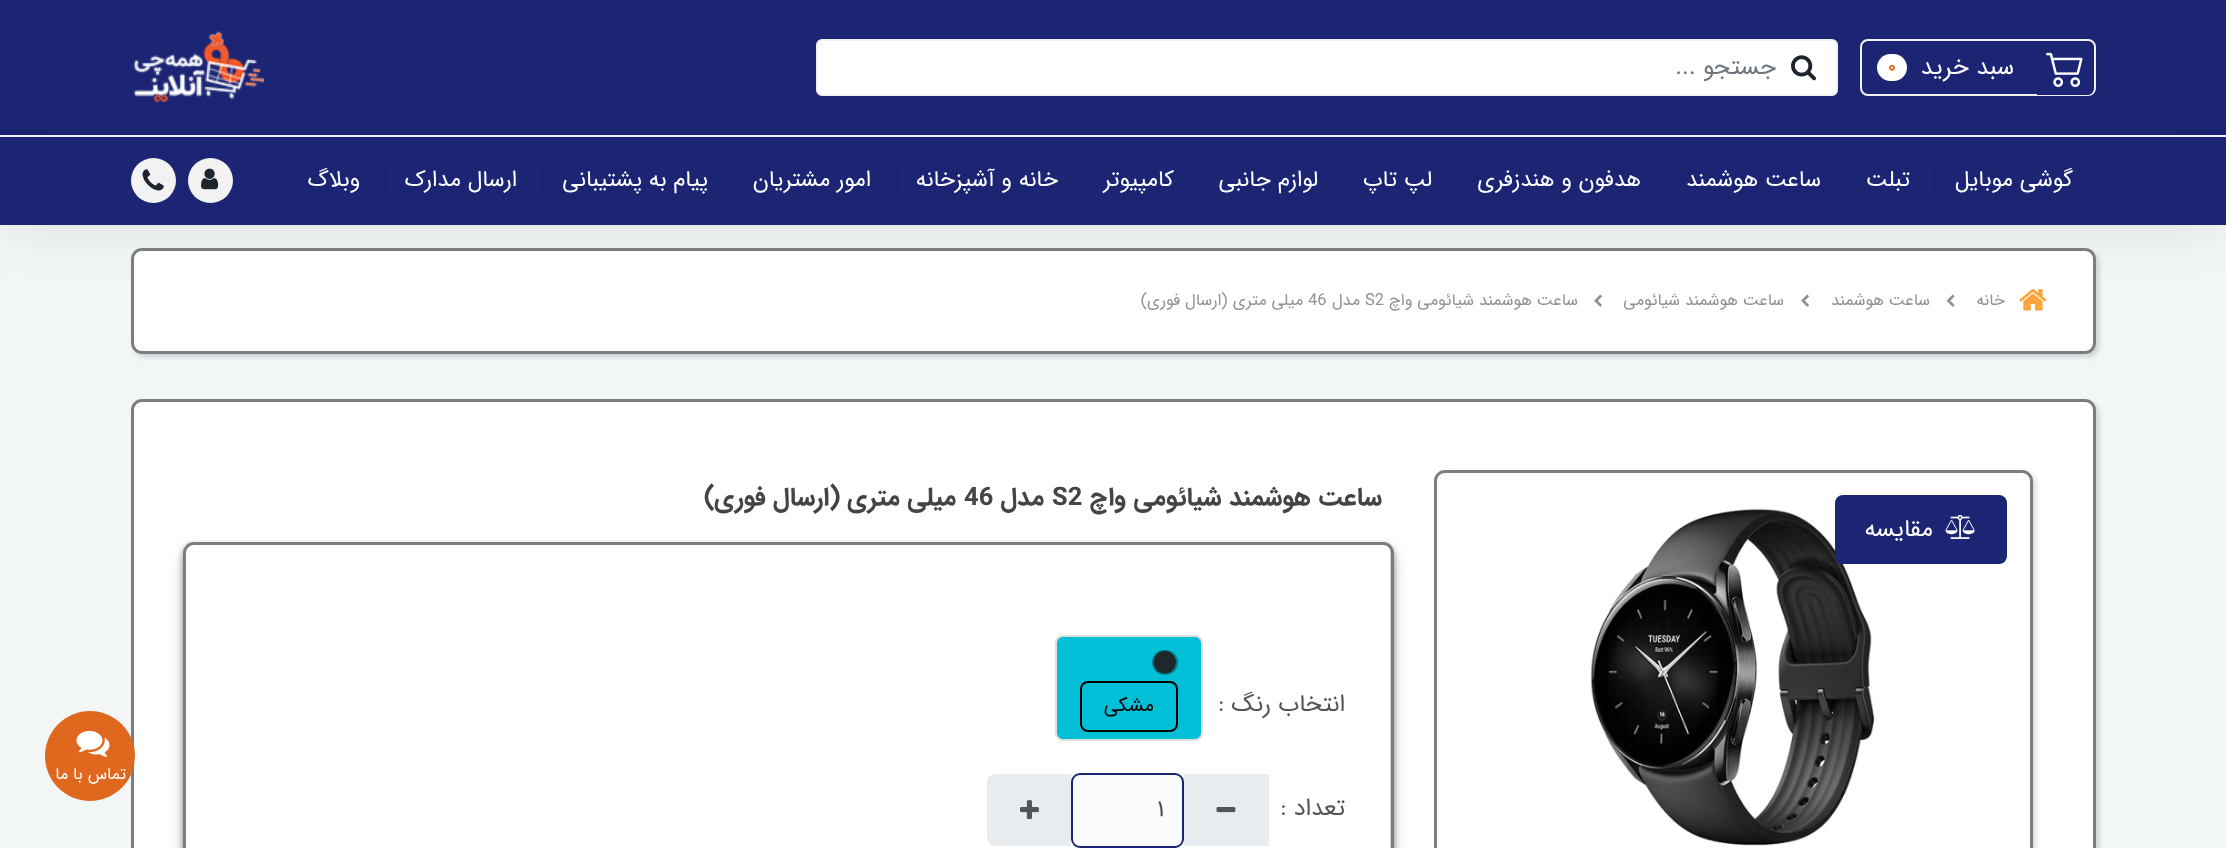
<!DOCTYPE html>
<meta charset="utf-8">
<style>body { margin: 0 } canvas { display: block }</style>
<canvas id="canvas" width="2226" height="848"></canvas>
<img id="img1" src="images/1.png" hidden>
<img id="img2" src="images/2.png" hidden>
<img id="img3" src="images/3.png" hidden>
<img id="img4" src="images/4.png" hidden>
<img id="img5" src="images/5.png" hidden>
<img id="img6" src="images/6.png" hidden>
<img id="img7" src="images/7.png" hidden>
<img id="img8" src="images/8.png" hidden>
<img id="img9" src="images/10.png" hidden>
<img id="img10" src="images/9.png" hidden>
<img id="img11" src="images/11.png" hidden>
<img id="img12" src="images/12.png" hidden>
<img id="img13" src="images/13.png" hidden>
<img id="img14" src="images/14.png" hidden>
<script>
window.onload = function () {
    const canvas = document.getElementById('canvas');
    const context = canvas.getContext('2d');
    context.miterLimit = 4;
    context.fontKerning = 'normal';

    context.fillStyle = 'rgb(242, 246, 247)';
    context.fillRect(0, 0, 2226, 848);
    context.fillStyle = 'rgb(28, 37, 116)';
    context.fillRect(0, 0, 2226, 225);
    context.save();
    context.beginPath();
    context.moveTo(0, 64);
    context.lineTo(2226, 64);
    context.lineTo(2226, 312);
    context.lineTo(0, 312);
    context.closePath();
    context.moveTo(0, 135);
    context.lineTo(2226, 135);
    context.lineTo(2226, 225);
    context.lineTo(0, 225);
    context.closePath();
    context.clip('evenodd');
    context.fillStyle = 'rgba(0, 0, 0, 0.07)';
    context.filter = 'blur(26px)';
    context.beginPath();
    context.rect(0, 143, 2226, 90);
    context.fill();
    context.filter = 'none';
    context.restore();
    context.beginPath();
    context.roundRect(1861, 40, 234, 55, 7);
    context.strokeStyle = 'rgb(242, 242, 242)';
    context.lineWidth = 2;
    context.stroke();
    context.save();
    context.beginPath();
    context.roundRect(1862, 41, 232, 54, 6);
    context.clip();
    context.beginPath();
    context.roundRect(2037, 41, 57, 55, [0, 8, 8, 0]);
    context.fill();
    context.restore();
    context.drawImage(document.getElementById('img1'), 2046, 52, 37, 35);
    context.fillStyle = 'rgb(255, 255, 255)';
    context.beginPath();
    context.roundRect(1877, 54, 30, 27, 13.5);
    context.fill();
    context.beginPath();
    context.roundRect(817, 40, 1020, 55, 5);
    context.fill();
    context.stroke();
    context.drawImage(document.getElementById('img2'), 1791, 55, 26, 26);
    context.drawImage(document.getElementById('img3'), 133, 31, 131, 72);
    context.fillStyle = 'rgb(242, 242, 242)';
    context.fillRect(0, 135, 2226, 2);
    context.fillStyle = 'rgb(26, 34, 108)';
    context.fillRect(1934, 167, 2, 27);
    context.fillRect(1845, 167, 2, 27);
    context.fillRect(1665, 167, 2, 27);
    context.fillRect(1457, 167, 2, 27);
    context.fillRect(1343, 167, 2, 27);
    context.fillRect(1197, 167, 2, 27);
    context.fillRect(1082, 167, 2, 27);
    context.fillRect(896, 167, 2, 27);
    context.fillRect(732, 167, 2, 27);
    context.fillRect(542, 167, 2, 27);
    context.fillRect(384, 167, 2, 27);
    context.fillStyle = 'rgb(242, 242, 242)';
    context.beginPath();
    context.arc(210.5, 180.5, 22.5, 0, 2 * Math.PI);
    context.fill();
    context.drawImage(document.getElementById('img4'), 201, 168, 18, 22);
    context.beginPath();
    context.arc(153.5, 180.5, 22.5, 0, 2 * Math.PI);
    context.fill();
    context.drawImage(document.getElementById('img5'), 142, 169, 22, 22);
    context.fillStyle = 'rgba(0, 0, 0, 0.15)';
    context.filter = 'blur(2.5px)';
    context.beginPath();
    context.roundRect(134, 251, 1965, 106, 11);
    context.fill();
    context.filter = 'none';
    context.fillStyle = 'rgb(255, 255, 255)';
    context.beginPath();
    context.roundRect(131, 248, 1965, 106, 11);
    context.fill();
    context.beginPath();
    context.roundRect(132.5, 249.5, 1962, 103, 9.5);
    context.strokeStyle = 'rgba(29, 36, 44, 0.59)';
    context.lineWidth = 3;
    context.stroke();
    context.drawImage(document.getElementById('img6'), 2019, 289, 28, 22);
    context.drawImage(document.getElementById('img7'), 1946, 294, 9, 13);
    context.drawImage(document.getElementById('img8'), 1801, 294, 8, 13);
    context.drawImage(document.getElementById('img8'), 1594, 294, 8, 13);
    context.fillStyle = 'rgba(0, 0, 0, 0.15)';
    context.filter = 'blur(2.5px)';
    context.beginPath();
    context.roundRect(134, 402, 1965, 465, 11);
    context.fill();
    context.filter = 'none';
    context.fillStyle = 'rgb(255, 255, 255)';
    context.beginPath();
    context.roundRect(131, 399, 1965, 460, 11);
    context.fill();
    context.beginPath();
    context.roundRect(132.5, 400.5, 1962, 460, 9.5);
    context.stroke();
    context.fillStyle = 'rgba(0, 0, 0, 0.15)';
    context.filter = 'blur(2.5px)';
    context.beginPath();
    context.roundRect(1437, 473, 599, 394, 11);
    context.fill();
    context.filter = 'none';
    context.fillStyle = 'rgb(255, 255, 255)';
    context.beginPath();
    context.roundRect(1434, 470, 599, 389, 11);
    context.fill();
    context.beginPath();
    context.roundRect(1435.5, 471.5, 596, 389, 9.5);
    context.stroke();
    context.drawImage(document.getElementById('img9'), 1590, 508, 285, 338);
    context.fillStyle = 'rgb(28, 37, 116)';
    context.beginPath();
    context.roundRect(1835, 495, 172, 69, 8);
    context.fill();
    context.drawImage(document.getElementById('img10'), 1945, 515, 30, 24);
    context.fillStyle = 'rgba(0, 0, 0, 0.3)';
    context.filter = 'blur(10px)';
    context.beginPath();
    context.roundRect(188, 557, 1201, 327, 6);
    context.fill();
    context.filter = 'none';
    context.fillStyle = 'rgba(0, 0, 0, 0.4)';
    context.filter = 'blur(3px)';
    context.beginPath();
    context.roundRect(183, 545, 1211, 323, 11);
    context.fill();
    context.filter = 'none';
    context.fillStyle = 'rgb(255, 255, 255)';
    context.beginPath();
    context.roundRect(183, 542, 1211, 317, 11);
    context.fill();
    context.fillStyle = 'rgb(204, 204, 204)';
    context.beginPath();
    context.moveTo(186, 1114);
    context.lineTo(186, 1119);
    context.bezierCurveTo(186, 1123, 190, 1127, 194, 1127);
    context.lineTo(1383, 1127);
    context.bezierCurveTo(1387, 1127, 1391, 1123, 1391, 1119);
    context.lineTo(1391, 553);
    context.bezierCurveTo(1391, 552, 1391, 550, 1390, 549);
    context.lineTo(1390, 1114);
    context.bezierCurveTo(1390, 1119, 1387, 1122, 1383, 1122);
    context.lineTo(194, 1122);
    context.bezierCurveTo(189, 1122, 186, 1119, 186, 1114);
    context.closePath();
    context.fill();
    context.beginPath();
    context.roundRect(184.5, 543.5, 1208, 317, 9.5);
    context.stroke();
    context.fillStyle = 'rgb(0, 191, 214)';
    context.beginPath();
    context.roundRect(1056, 636, 146, 104, 7);
    context.fill();
    context.strokeStyle = 'rgb(222, 222, 222)';
    context.lineWidth = 2;
    context.stroke();
    context.beginPath();
    context.roundRect(1153, 651, 24, 23, 11.5);
    context.strokeStyle = 'rgb(0, 124, 139)';
    context.stroke();
    context.drawImage(document.getElementById('img11'), 1153, 651, 23, 23);
    context.beginPath();
    context.roundRect(1081, 682, 96, 49, 7);
    context.strokeStyle = 'rgb(0, 0, 0)';
    context.stroke();
    context.fillStyle = 'rgb(233, 236, 239)';
    context.fillRect(1184, 774, 85, 72);
    context.drawImage(document.getElementById('img12'), 1216, 807, 20, 6);
    context.fillStyle = 'rgb(250, 251, 252)';
    context.beginPath();
    context.roundRect(1072, 774, 111, 73, 8);
    context.fill();
    context.strokeStyle = 'rgb(28, 37, 116)';
    context.stroke();
    context.fillStyle = 'rgb(233, 236, 239)';
    context.beginPath();
    context.roundRect(987, 774, 84, 72, [8, 0, 0, 8]);
    context.fill();
    context.drawImage(document.getElementById('img13'), 1020, 800, 19, 19);
    context.fillStyle = 'rgb(224, 103, 30)';
    context.beginPath();
    context.arc(90, 756, 45, 0, 2 * Math.PI);
    context.fill();
    context.drawImage(document.getElementById('img14'), 76, 730, 34, 27);
    context.direction = 'rtl';
    context.font = '24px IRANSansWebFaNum';
    context.fillStyle = 'rgb(255, 255, 255)';
    context.fillText('سبد خرید', 2014, 74);
    context.direction = 'ltr';
    context.font = 'bold 18px IRANSansWebFaNum';
    context.fillStyle = 'rgb(224, 103, 30)';
    context.fillText('0', 1888, 72);
    context.direction = 'rtl';
    context.font = '24px IRANSansWebFaNum';
    context.fillStyle = 'rgb(108, 117, 125)';
    context.fillText('جستجو ...', 1776, 74);
    context.font = '22.5px IRANSansWebFaNum';
    context.fillStyle = 'rgb(255, 255, 255)';
    context.fillText('گوشی موبایل', 2073, 186);
    context.fillText('تبلت', 1910, 186);
    context.fillText('ساعت هوشمند', 1821, 186);
    context.fillText('هدفون و هندزفری', 1641, 186);
    context.fillText('لپ تاپ', 1432, 186);
    context.fillText('لوازم جانبی', 1318, 186);
    context.fillText('کامپیوتر', 1174, 186);
    context.fillText('خانه و آشپزخانه', 1058, 186);
    context.fillText('امور مشتریان', 871, 186);
    context.fillText('پیام به پشتیبانی', 708, 186);
    context.fillText('ارسال مدارک', 517, 186);
    context.fillText('وبلاگ', 360, 186);
    context.font = '16.5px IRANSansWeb';
    context.fillStyle = 'rgb(144, 146, 149)';
    context.fillText('خانه', 2005, 305);
    context.fillText('ساعت هوشمند', 1930, 305);
    context.fillText('ساعت هوشمند شیائومی', 1784, 305);
    context.fillText('ساعت هوشمند شیائومی واچ', 1578, 305);
    context.direction = 'ltr';
    context.fillText('S2', 1365, 305);
    context.direction = 'rtl';
    context.fillText('مدل', 1360, 305);
    context.direction = 'ltr';
    context.fillText('46', 1308, 305);
    context.direction = 'rtl';
    context.fillText('میلی متری (ارسال فوری)', 1303, 305);
    context.font = '24px IRANSansWebFaNum';
    context.fillStyle = 'rgb(255, 255, 255)';
    context.fillText('مقایسه', 1933, 536);
    context.font = 'bold 25.5px IRANSansWeb';
    context.fillStyle = 'rgb(68, 68, 68)';
    context.fillText('ساعت هوشمند شیائومی واچ', 1382, 505);
    context.direction = 'ltr';
    context.fillText('S2', 1052, 505);
    context.direction = 'rtl';
    context.fillText('مدل', 1044, 505);
    context.direction = 'ltr';
    context.fillText('46', 964, 505);
    context.direction = 'rtl';
    context.fillText('میلی متری (ارسال فوری)', 956, 505);
    context.font = '24px IRANSansWebFaNum';
    context.fillStyle = 'rgb(80, 85, 90)';
    context.fillText('انتخاب رنگ :', 1345, 711);
    context.font = '19.5px IRANSansWebFaNum';
    context.fillStyle = 'rgb(0, 0, 0)';
    context.fillText('مشکی', 1154, 711);
    context.font = '24px IRANSansWebFaNum';
    context.fillStyle = 'rgb(80, 85, 90)';
    context.fillText('تعداد :', 1345, 815);
    context.direction = 'ltr';
    context.fillStyle = 'rgb(73, 80, 87)';
    context.fillText('1', 1157, 816);
    context.direction = 'rtl';
    context.font = '16.5px IRANSansWebFaNum';
    context.fillStyle = 'rgb(255, 255, 255)';
    context.fillText('تماس با ما', 126, 779);
};
</script>
